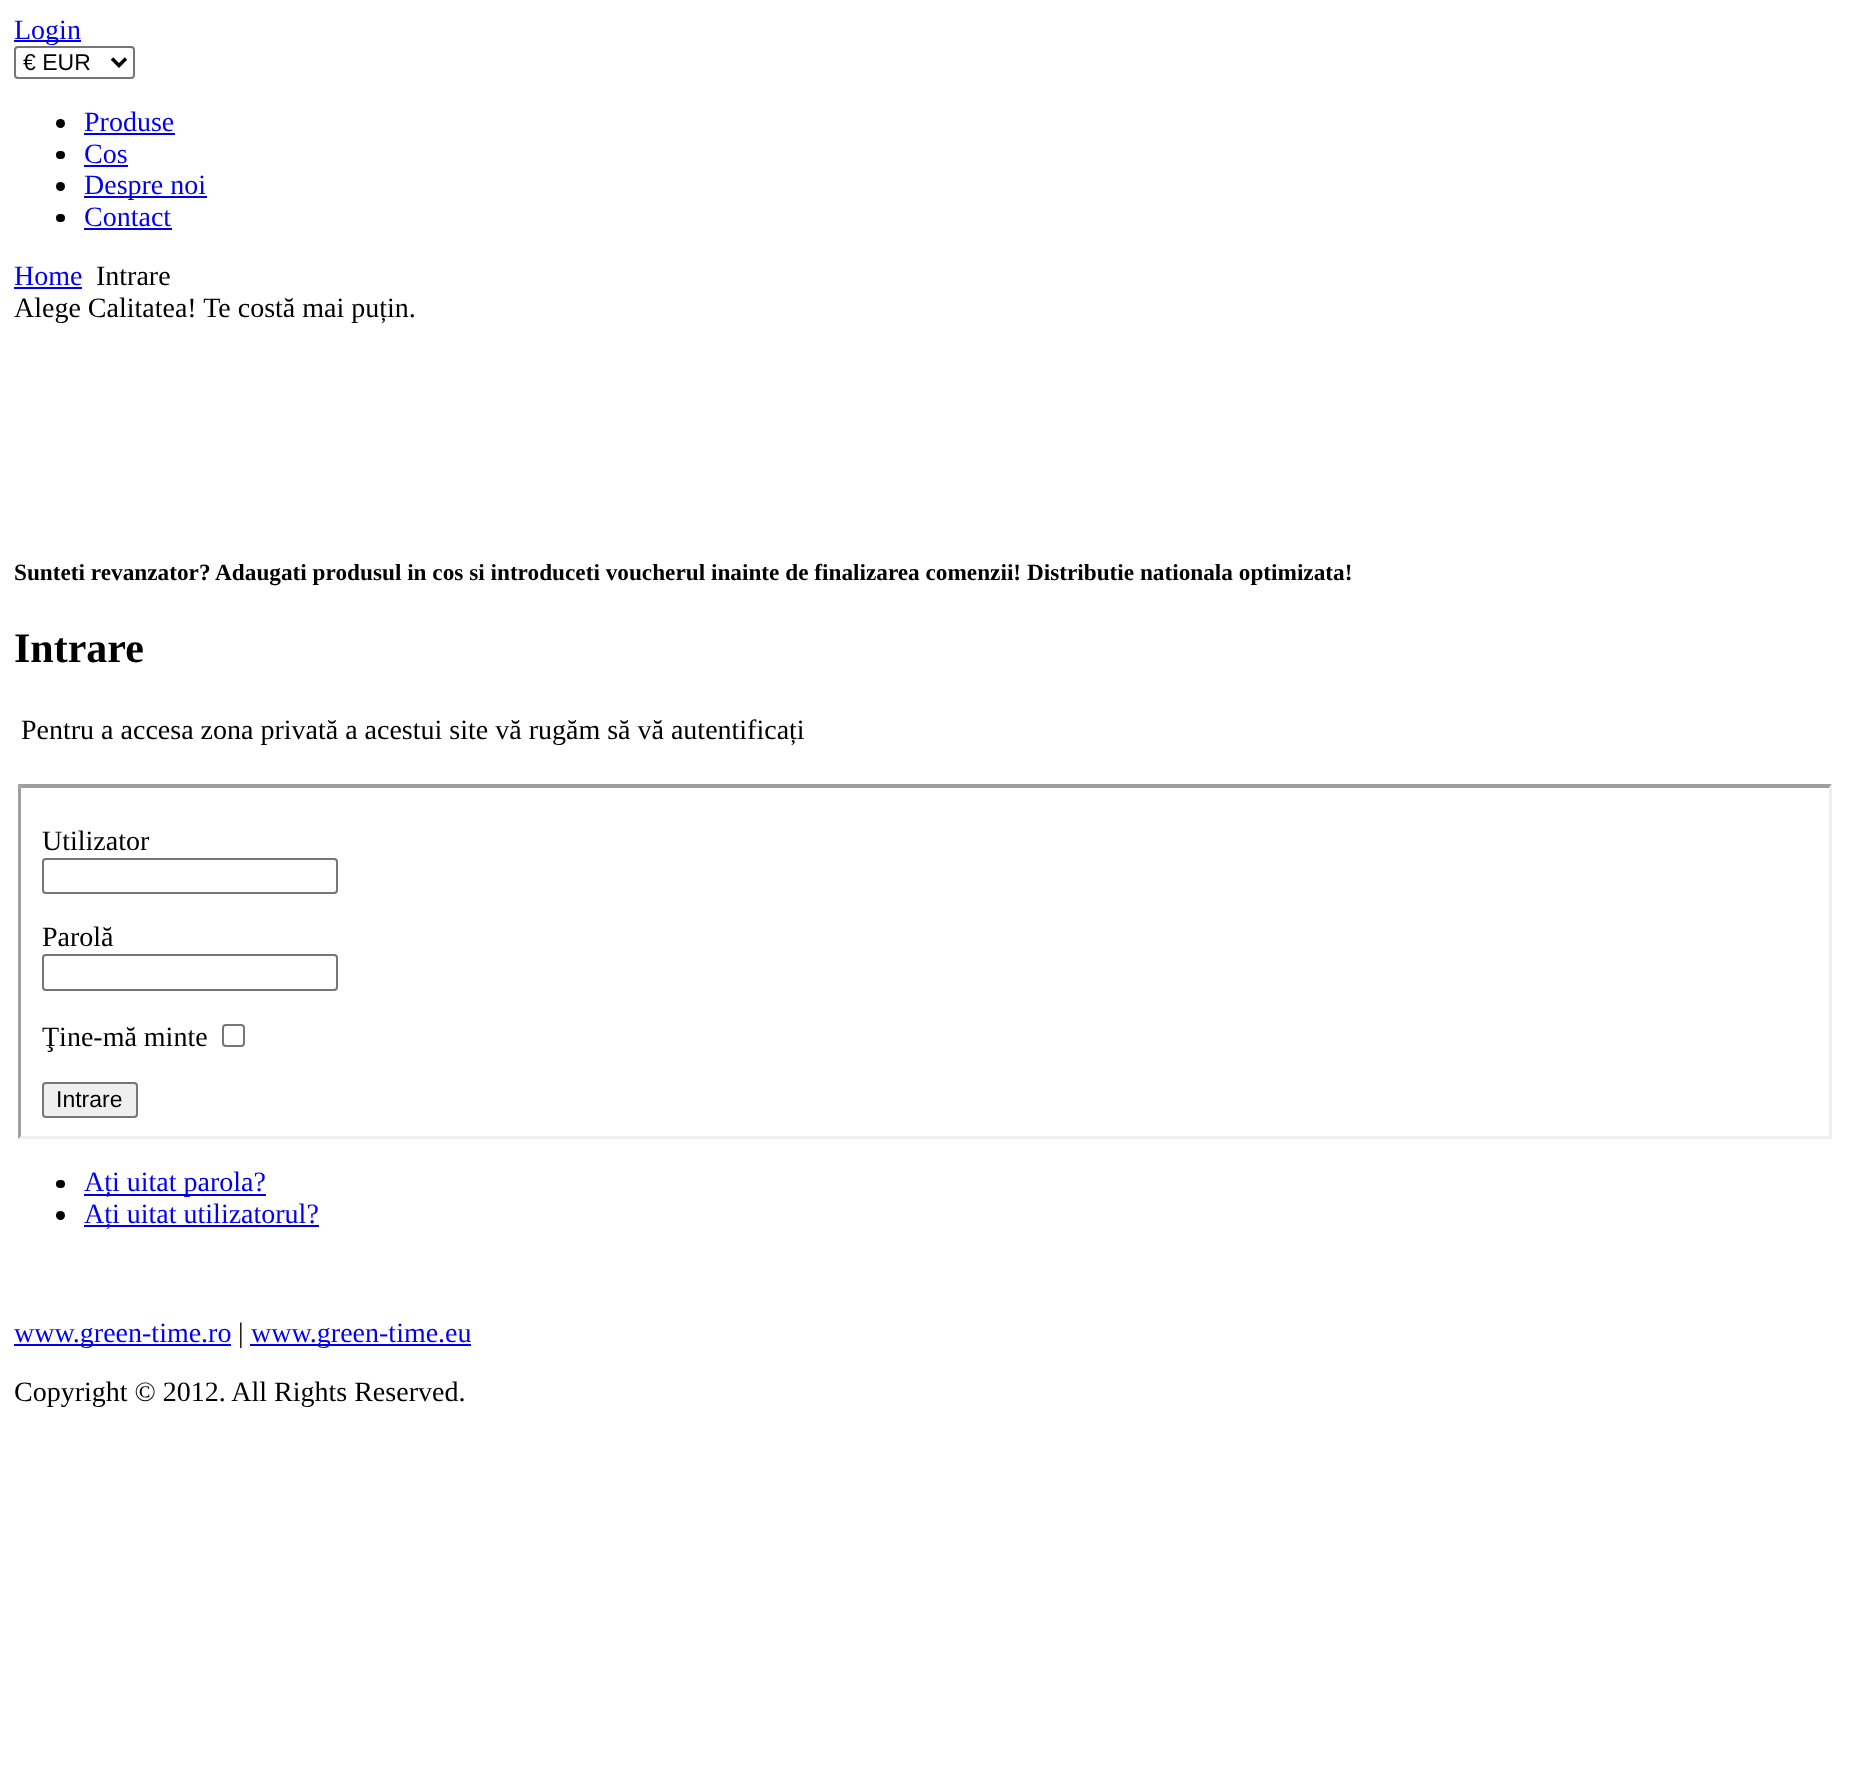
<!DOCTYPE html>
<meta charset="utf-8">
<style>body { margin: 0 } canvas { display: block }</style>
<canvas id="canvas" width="1849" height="1780"></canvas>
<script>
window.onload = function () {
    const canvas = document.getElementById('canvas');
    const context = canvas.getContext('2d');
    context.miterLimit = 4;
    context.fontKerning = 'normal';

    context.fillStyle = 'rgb(255, 255, 255)';
    context.fillRect(0, 0, 1849, 1780);
    context.fillStyle = 'rgb(0, 0, 238)';
    context.fillRect(14, 40, 67, 2);
    context.beginPath();
    context.roundRect(15, 47, 119, 31, 3);
    context.strokeStyle = 'rgb(118, 118, 118)';
    context.lineWidth = 2;
    context.stroke();
    context.beginPath();
    context.moveTo(112, 58.5);
    context.lineTo(119, 65.5);
    context.lineTo(126, 58.5);
    context.strokeStyle = 'rgb(0, 0, 0)';
    context.lineWidth = 3.5;
    context.stroke();
    context.fillStyle = 'rgb(0, 0, 0)';
    context.beginPath();
    context.arc(60.5, 123.5, 4.5, 0, 2 * Math.PI);
    context.fill();
    context.fillStyle = 'rgb(0, 0, 238)';
    context.fillRect(84, 133, 91, 2);
    context.fillStyle = 'rgb(0, 0, 0)';
    context.beginPath();
    context.roundRect(56, 151, 9, 8, 4);
    context.fill();
    context.fillStyle = 'rgb(0, 0, 238)';
    context.fillRect(84, 165, 44, 2);
    context.fillStyle = 'rgb(0, 0, 0)';
    context.beginPath();
    context.arc(60.5, 186.5, 4.5, 0, 2 * Math.PI);
    context.fill();
    context.fillStyle = 'rgb(0, 0, 238)';
    context.fillRect(84, 196, 123, 2);
    context.fillStyle = 'rgb(0, 0, 0)';
    context.beginPath();
    context.roundRect(56, 214, 9, 8, 4);
    context.fill();
    context.fillStyle = 'rgb(0, 0, 238)';
    context.fillRect(84, 228, 88, 2);
    context.fillRect(14, 287, 68, 2);
    context.fillStyle = 'rgb(159, 159, 159)';
    context.beginPath();
    context.moveTo(18, 784);
    context.lineTo(1832, 784);
    context.lineTo(1829, 788);
    context.lineTo(21, 788);
    context.closePath();
    context.fill();
    context.fillStyle = 'rgb(239, 239, 239)';
    context.beginPath();
    context.moveTo(1832, 784);
    context.lineTo(1832, 1139);
    context.lineTo(1829, 1136);
    context.lineTo(1829, 788);
    context.closePath();
    context.fill();
    context.beginPath();
    context.moveTo(1832, 1139);
    context.lineTo(18, 1139);
    context.lineTo(21, 1136);
    context.lineTo(1829, 1136);
    context.closePath();
    context.fill();
    context.fillStyle = 'rgb(159, 159, 159)';
    context.beginPath();
    context.moveTo(18, 1139);
    context.lineTo(18, 784);
    context.lineTo(21, 788);
    context.lineTo(21, 1136);
    context.closePath();
    context.fill();
    context.beginPath();
    context.roundRect(43, 859, 294, 34, 3);
    context.strokeStyle = 'rgb(118, 118, 118)';
    context.lineWidth = 2;
    context.stroke();
    context.beginPath();
    context.roundRect(43, 955, 294, 35, 3);
    context.stroke();
    context.beginPath();
    context.roundRect(223, 1025, 21, 21, 3);
    context.stroke();
    context.fillStyle = 'rgb(239, 239, 239)';
    context.beginPath();
    context.roundRect(43, 1083, 94, 34, 3);
    context.fill();
    context.stroke();
    context.fillStyle = 'rgb(0, 0, 0)';
    context.beginPath();
    context.roundRect(56, 1180, 9, 8, 4);
    context.fill();
    context.fillStyle = 'rgb(0, 0, 238)';
    context.fillRect(84, 1194, 182, 2);
    context.fillStyle = 'rgb(0, 0, 0)';
    context.beginPath();
    context.arc(60.5, 1215.5, 4.5, 0, 2 * Math.PI);
    context.fill();
    context.fillStyle = 'rgb(0, 0, 238)';
    context.fillRect(84, 1225, 235, 2);
    context.fillRect(14, 1344, 217, 2);
    context.fillRect(250, 1344, 221, 2);
    context.font = '28px Liberation Serif';
    context.fillText('Login', 14, 39);
    context.font = '23px Liberation Sans';
    context.fillStyle = 'rgb(0, 0, 0)';
    context.fillText('€ EUR', 23, 70);
    context.font = '28px Liberation Serif';
    context.fillStyle = 'rgb(0, 0, 238)';
    context.fillText('Produse', 84, 131);
    context.fillText('Cos', 84, 163);
    context.fillText('Despre noi', 84, 194);
    context.fillText('Contact', 84, 226);
    context.fillText('Home', 14, 285);
    context.fillStyle = 'rgb(0, 0, 0)';
    context.fillText('Intrare', 96, 285);
    context.fillText('Alege Calitatea! Te costă mai puțin.', 14, 317);
    context.font = 'bold 23.25px Liberation Serif';
    context.fillText('Sunteti revanzator? Adaugati produsul in cos si introduceti voucherul inainte de finalizarea comenzii! Distributie nationala optimizata!', 14, 580);
    context.font = 'bold 42px Liberation Serif';
    context.fillText('Intrare', 14, 662);
    context.font = '28px Liberation Serif';
    context.fillText('Pentru a accesa zona privată a acestui site vă rugăm să vă autentificați', 21, 739);
    context.fillText('Utilizator', 42, 850);
    context.fillText('Parolă', 42, 946);
    context.fillText('Ţine-mă minte', 42, 1046);
    context.font = '23px Liberation Sans';
    context.fillText('Intrare', 56, 1107);
    context.font = '28px Liberation Serif';
    context.fillStyle = 'rgb(0, 0, 238)';
    context.fillText('Ați uitat parola?', 84, 1191);
    context.fillText('Ați uitat utilizatorul?', 84, 1223);
    context.fillText('www.green-time.ro', 14, 1342);
    context.fillStyle = 'rgb(0, 0, 0)';
    context.fillText('|', 238, 1342);
    context.fillStyle = 'rgb(0, 0, 238)';
    context.fillText('www.green-time.eu', 251, 1342);
    context.fillStyle = 'rgb(0, 0, 0)';
    context.fillText('Copyright © 2012. All Rights Reserved.', 14, 1401);
};
</script>
